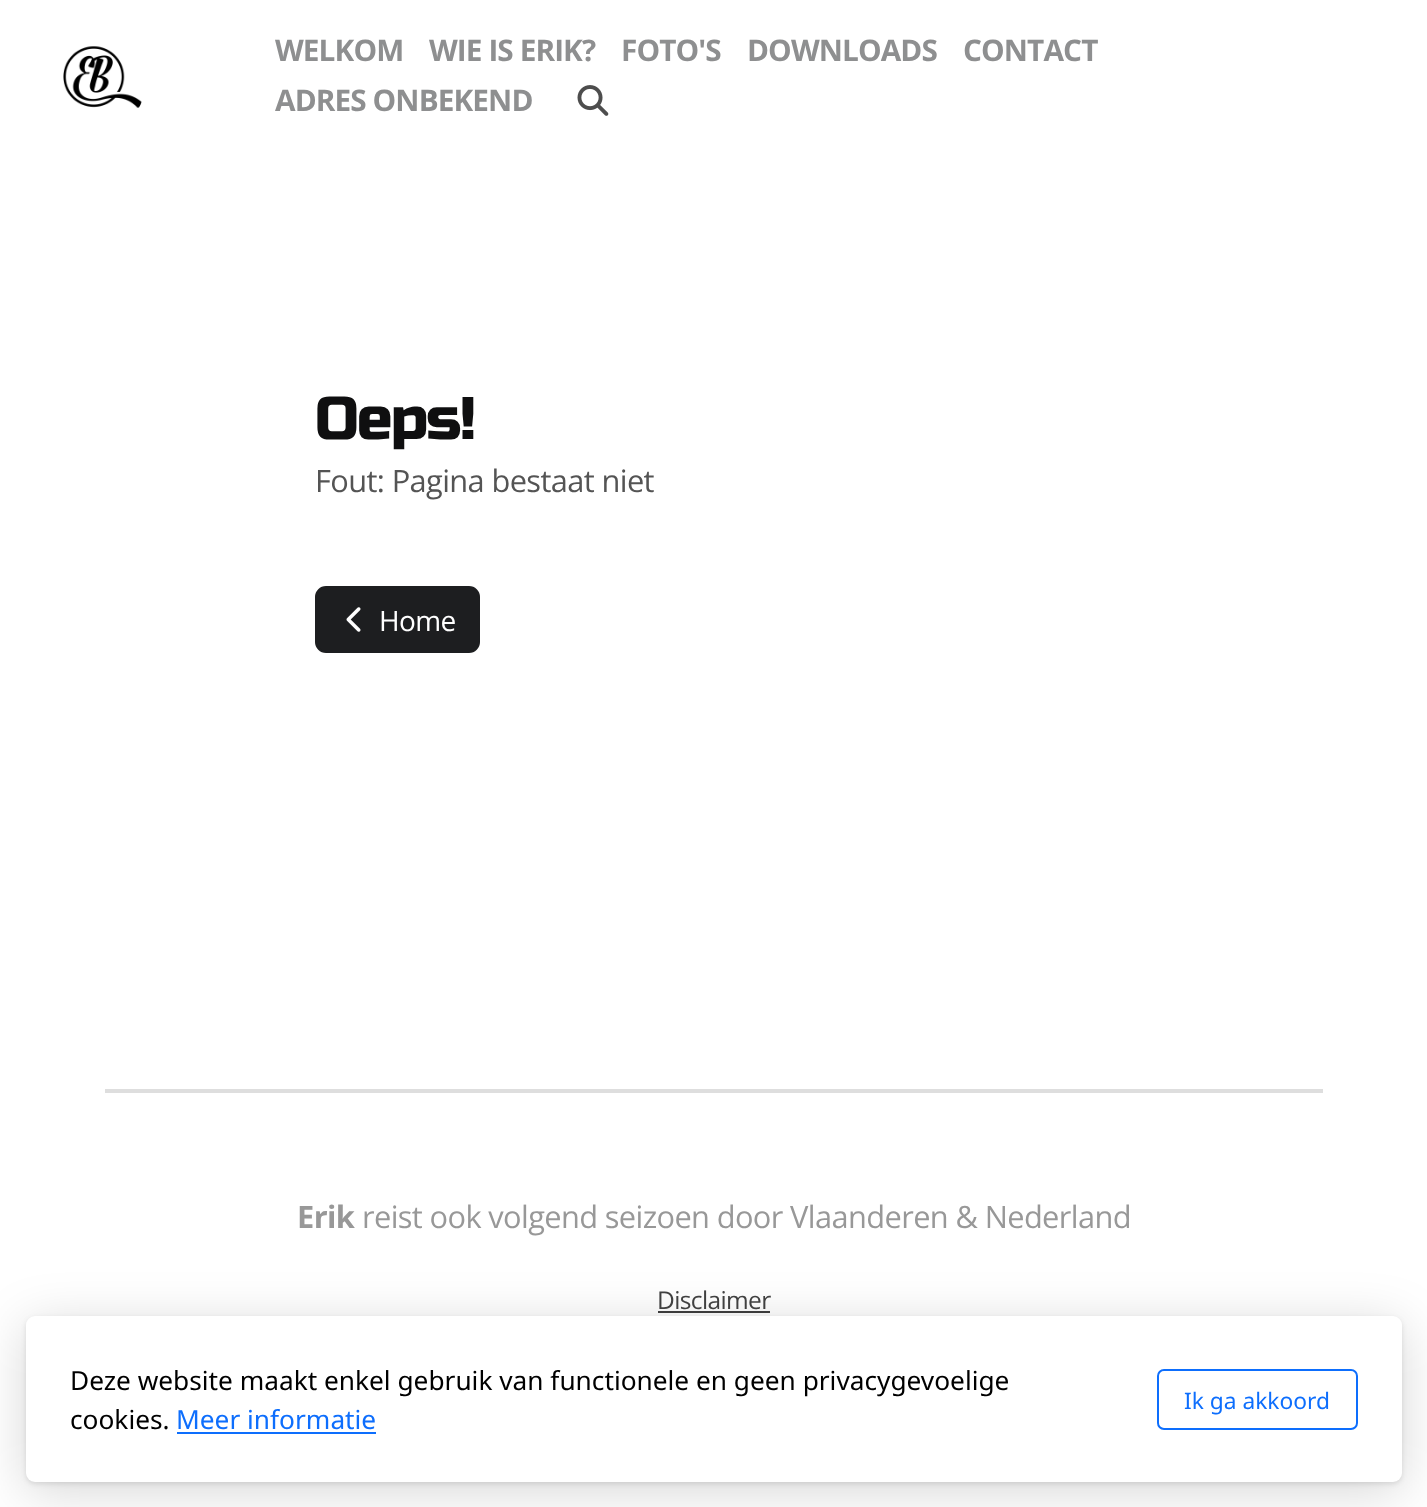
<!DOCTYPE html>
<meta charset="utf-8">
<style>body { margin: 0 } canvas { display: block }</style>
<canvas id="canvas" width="1427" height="1507"></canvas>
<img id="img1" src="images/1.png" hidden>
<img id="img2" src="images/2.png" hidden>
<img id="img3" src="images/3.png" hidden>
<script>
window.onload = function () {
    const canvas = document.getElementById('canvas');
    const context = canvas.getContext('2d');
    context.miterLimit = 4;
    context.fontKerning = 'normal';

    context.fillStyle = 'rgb(255, 255, 255)';
    context.fillRect(0, 0, 1427, 1507);
    context.drawImage(document.getElementById('img1'), 63, 46, 79, 62);
    context.drawImage(document.getElementById('img2'), 577, 85, 32, 31);
    context.fillStyle = 'rgb(29, 30, 32)';
    context.beginPath();
    context.roundRect(316, 587, 163, 65, 10);
    context.fill();
    context.strokeStyle = 'rgb(29, 30, 32)';
    context.lineWidth = 2;
    context.stroke();
    context.drawImage(document.getElementById('img3'), 346, 607, 15, 25);
    context.fillStyle = 'rgb(222, 222, 222)';
    context.fillRect(105, 1089, 1218, 4);
    context.fillStyle = 'rgb(64, 64, 64)';
    context.fillRect(658, 1311, 112, 2);
    context.fillStyle = 'rgba(0, 0, 0, 0.16)';
    context.filter = 'blur(26px)';
    context.beginPath();
    context.roundRect(26, 1325, 1376, 166, 9);
    context.fill();
    context.filter = 'none';
    context.fillStyle = 'rgba(0, 0, 0, 0.1)';
    context.filter = 'blur(2.5px)';
    context.beginPath();
    context.roundRect(26, 1318, 1376, 166, 9);
    context.fill();
    context.filter = 'none';
    context.fillStyle = 'rgb(255, 255, 255)';
    context.beginPath();
    context.roundRect(26, 1316, 1376, 166, 9);
    context.fill();
    context.fillStyle = 'rgb(13, 110, 253)';
    context.fillRect(177, 1432, 199, 2);
    context.beginPath();
    context.roundRect(1158, 1370, 199, 59, 6);
    context.strokeStyle = 'rgb(13, 110, 253)';
    context.stroke();
    context.letterSpacing = '-0.9px';
    context.font = 'bold 29.75px Open Sans';
    context.fillStyle = 'rgb(142, 143, 144)';
    context.fillText('WELKOM', 275, 61);
    context.fillText('WIE IS ERIK?', 429, 61);
    context.fillText('FOTO\'S', 621, 61);
    context.fillText('DOWNLOADS', 747, 61);
    context.fillText('CONTACT', 963, 61);
    context.fillText('ADRES ONBEKEND', 275, 111);
    context.letterSpacing = '-2px';
    context.font = '60px Russo One';
    context.fillStyle = 'rgb(15, 15, 16)';
    context.fillText('Oeps!', 315, 439);
    context.letterSpacing = '-0.62px';
    context.font = '30.8px Open Sans';
    context.fillStyle = 'rgb(84, 84, 84)';
    context.fillText('Fout: Pagina bestaat niet', 315, 492);
    context.font = '28px Open Sans';
    context.fillStyle = 'rgb(255, 255, 255)';
    context.fillText('Home', 379, 631);
    context.font = 'bold 30.8px Open Sans';
    context.fillStyle = 'rgb(152, 152, 152)';
    context.fillText('Erik', 297, 1228);
    context.font = '30.8px Open Sans';
    context.fillText('reist ook volgend seizoen door Vlaanderen & Nederland', 362, 1228);
    context.font = '24.5px Open Sans';
    context.fillStyle = 'rgb(64, 64, 64)';
    context.fillText('Disclaimer', 657, 1309);
    context.letterSpacing = '0px';
    context.font = '26.25px Noto Sans';
    context.fillStyle = 'rgb(0, 0, 0)';
    context.fillText('Deze website maakt enkel gebruik van functionele en geen privacygevoelige', 70, 1390);
    context.fillText('cookies.', 70, 1429);
    context.fillStyle = 'rgb(13, 110, 253)';
    context.fillText('Meer informatie', 176, 1429);
    context.font = '22.75px Noto Sans';
    context.fillText('Ik ga akkoord', 1184, 1409);
};
</script>
